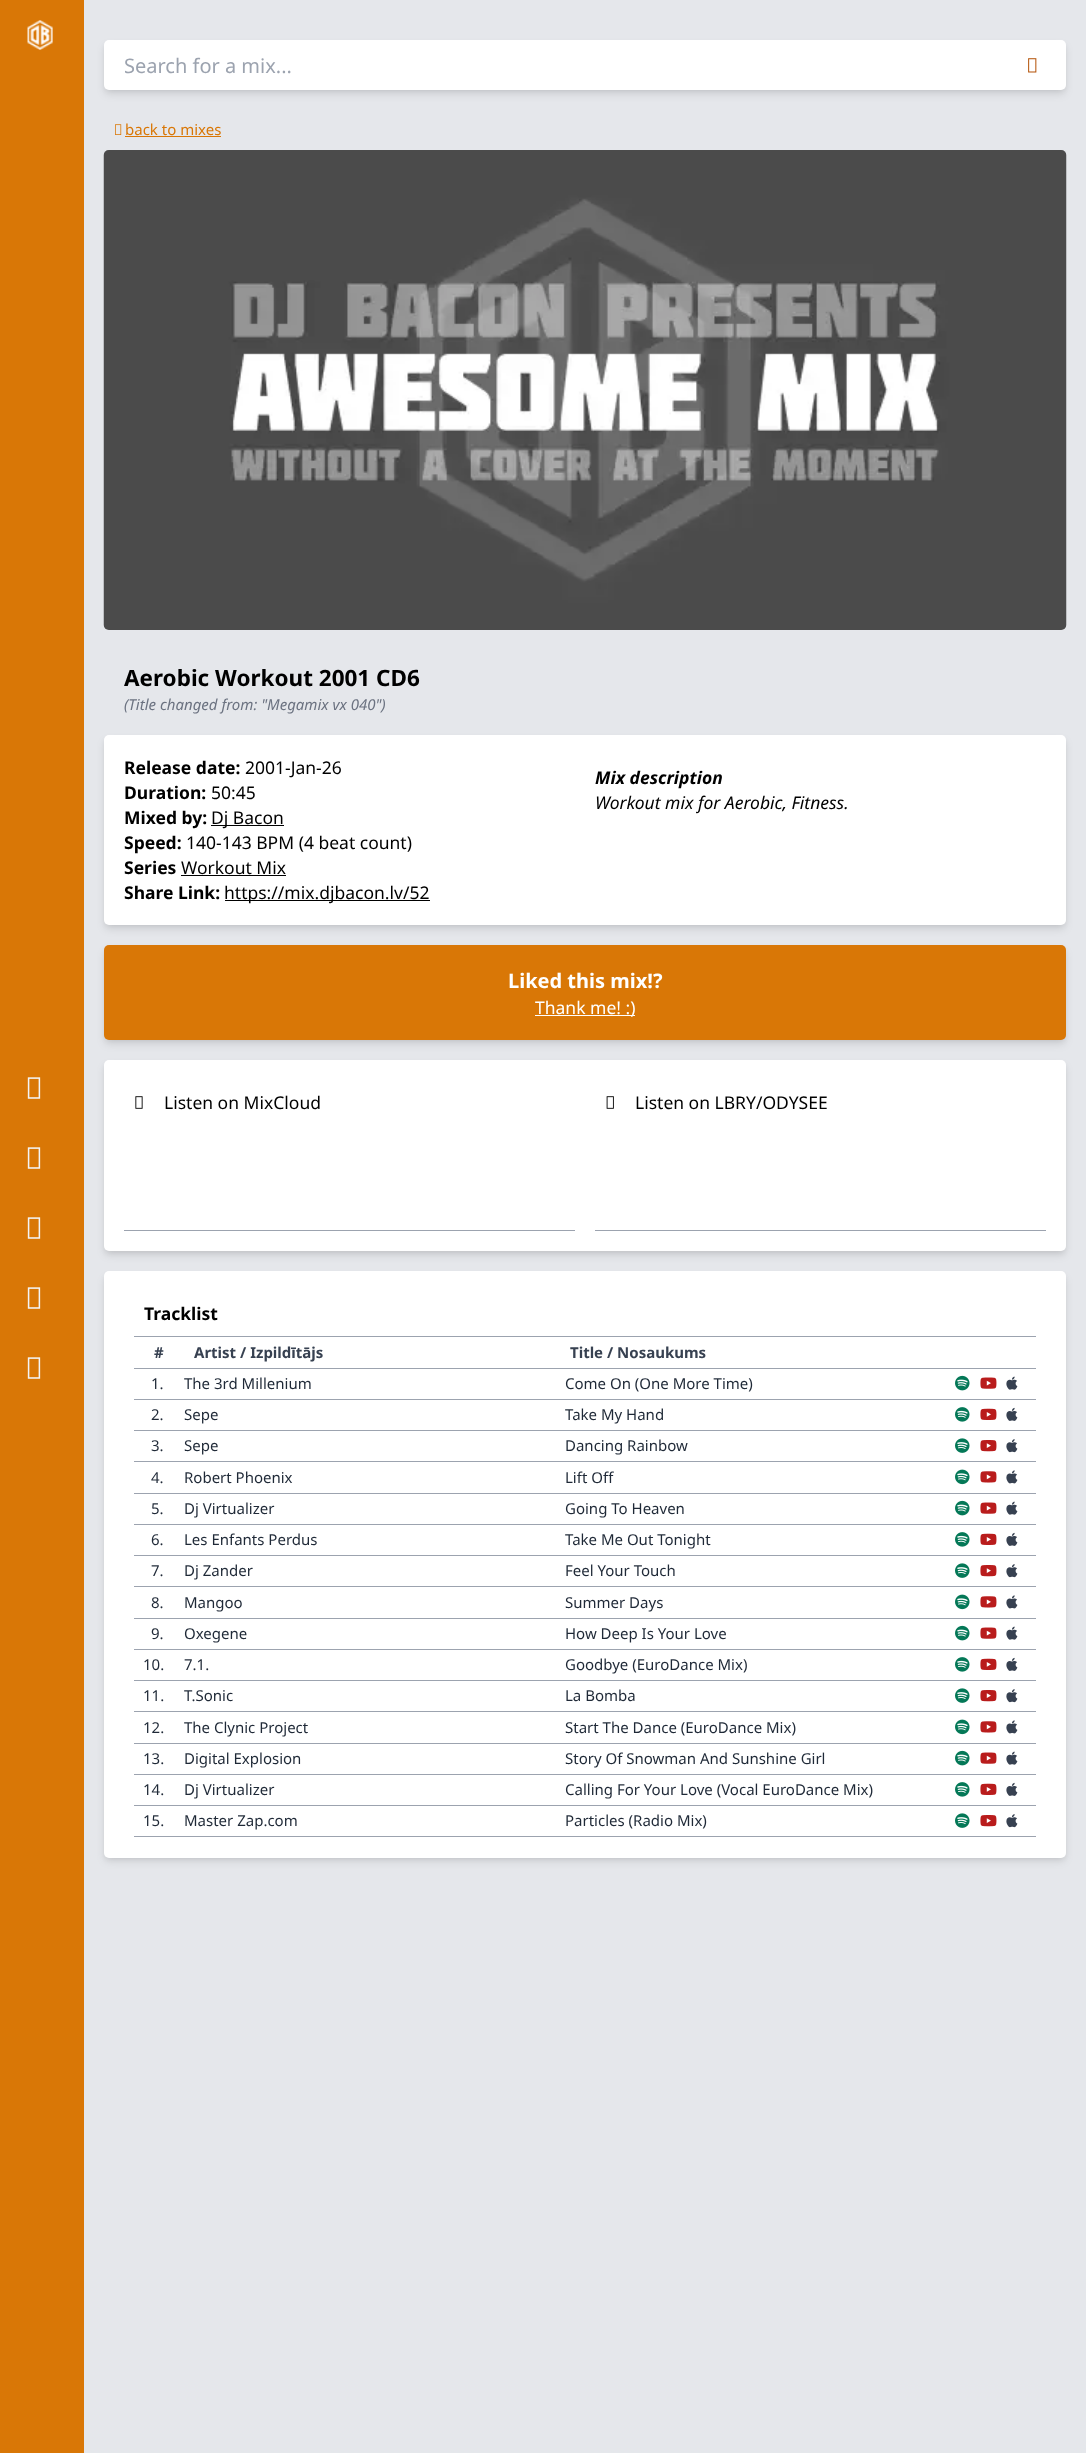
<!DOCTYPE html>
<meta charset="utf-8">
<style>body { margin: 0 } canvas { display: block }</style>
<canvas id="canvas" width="1086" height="2453"></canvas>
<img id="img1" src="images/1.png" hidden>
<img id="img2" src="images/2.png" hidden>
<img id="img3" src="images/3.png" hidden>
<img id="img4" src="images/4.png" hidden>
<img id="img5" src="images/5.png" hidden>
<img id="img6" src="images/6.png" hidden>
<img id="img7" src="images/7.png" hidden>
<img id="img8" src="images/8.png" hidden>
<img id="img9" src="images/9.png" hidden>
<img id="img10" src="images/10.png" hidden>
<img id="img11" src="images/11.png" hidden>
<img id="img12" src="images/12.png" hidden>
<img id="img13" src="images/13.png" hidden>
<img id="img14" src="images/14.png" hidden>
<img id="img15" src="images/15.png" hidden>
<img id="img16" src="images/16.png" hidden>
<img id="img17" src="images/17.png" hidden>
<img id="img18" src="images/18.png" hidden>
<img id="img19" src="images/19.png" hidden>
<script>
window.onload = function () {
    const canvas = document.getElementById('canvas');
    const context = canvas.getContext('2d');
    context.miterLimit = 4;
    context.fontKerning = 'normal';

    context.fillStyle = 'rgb(229, 231, 235)';
    context.fillRect(0, 0, 1086, 2453);
    context.fillStyle = 'rgb(217, 119, 6)';
    context.fillRect(0, 0, 84, 2453);
    context.drawImage(document.getElementById('img1'), 27, 20, 26, 30);
    context.drawImage(document.getElementById('img2'), 27, 1077, 14, 22);
    context.drawImage(document.getElementById('img2'), 27, 1147, 14, 22);
    context.drawImage(document.getElementById('img2'), 27, 1217, 14, 22);
    context.drawImage(document.getElementById('img2'), 27, 1287, 14, 22);
    context.drawImage(document.getElementById('img2'), 27, 1357, 14, 22);
    context.fillStyle = 'rgba(0, 0, 0, 0.06)';
    context.filter = 'blur(2.5px)';
    context.beginPath();
    context.roundRect(105, 44, 960, 47, 4);
    context.fill();
    context.filter = 'none';
    context.fillStyle = 'rgba(0, 0, 0, 0.1)';
    context.filter = 'blur(4px)';
    context.beginPath();
    context.roundRect(105, 46, 960, 48, 4);
    context.fill();
    context.filter = 'none';
    context.fillStyle = 'rgb(255, 255, 255)';
    context.beginPath();
    context.roundRect(104, 40, 902, 50, [5, 0, 0, 5]);
    context.fill();
    context.beginPath();
    context.roundRect(1006, 40, 60, 50, [0, 5, 5, 0]);
    context.fill();
    context.drawImage(document.getElementById('img3'), 1028, 58, 9, 15);
    context.drawImage(document.getElementById('img4'), 115, 124, 7, 11);
    context.fillStyle = 'rgb(217, 119, 6)';
    context.fillRect(125, 136, 96, 1);
    context.drawImage(document.getElementById('img5'), 103, 150, 964, 480);
    context.fillStyle = 'rgba(0, 0, 0, 0.06)';
    context.filter = 'blur(2.5px)';
    context.beginPath();
    context.roundRect(105, 739, 960, 187, 4);
    context.fill();
    context.filter = 'none';
    context.fillStyle = 'rgba(0, 0, 0, 0.1)';
    context.filter = 'blur(4px)';
    context.beginPath();
    context.roundRect(105, 741, 960, 188, 4);
    context.fill();
    context.filter = 'none';
    context.fillStyle = 'rgb(255, 255, 255)';
    context.beginPath();
    context.roundRect(104, 735, 962, 190, 5);
    context.fill();
    context.fillStyle = 'rgb(0, 0, 0)';
    context.fillRect(211, 825, 73, 1);
    context.fillRect(181, 875, 105, 1);
    context.fillRect(225, 900, 205, 1);
    context.fillStyle = 'rgba(0, 0, 0, 0.06)';
    context.filter = 'blur(2.5px)';
    context.beginPath();
    context.roundRect(105, 949, 960, 92, 4);
    context.fill();
    context.filter = 'none';
    context.fillStyle = 'rgba(0, 0, 0, 0.1)';
    context.filter = 'blur(4px)';
    context.beginPath();
    context.roundRect(105, 951, 960, 93, 4);
    context.fill();
    context.filter = 'none';
    context.fillStyle = 'rgb(217, 119, 6)';
    context.beginPath();
    context.roundRect(104, 945, 962, 95, 5);
    context.fill();
    context.fillStyle = 'rgb(255, 255, 255)';
    context.fillRect(535, 1015, 100, 1);
    context.fillStyle = 'rgba(0, 0, 0, 0.06)';
    context.filter = 'blur(2.5px)';
    context.beginPath();
    context.roundRect(105, 1064, 960, 189, 4);
    context.fill();
    context.filter = 'none';
    context.fillStyle = 'rgba(0, 0, 0, 0.1)';
    context.filter = 'blur(4px)';
    context.beginPath();
    context.roundRect(105, 1066, 960, 189, 4);
    context.fill();
    context.filter = 'none';
    context.fillStyle = 'rgb(255, 255, 255)';
    context.beginPath();
    context.roundRect(104, 1060, 962, 191, 5);
    context.fill();
    context.fillStyle = 'rgb(156, 163, 175)';
    context.fillRect(124, 1230, 451, 1);
    context.drawImage(document.getElementById('img6'), 135, 1096, 8, 13);
    context.fillRect(595, 1230, 451, 1);
    context.drawImage(document.getElementById('img7'), 606, 1096, 8, 13);
    context.fillStyle = 'rgba(0, 0, 0, 0.06)';
    context.filter = 'blur(2.5px)';
    context.beginPath();
    context.roundRect(105, 1275, 960, 584, 4);
    context.fill();
    context.filter = 'none';
    context.fillStyle = 'rgba(0, 0, 0, 0.1)';
    context.filter = 'blur(4px)';
    context.beginPath();
    context.roundRect(105, 1278, 960, 583, 4);
    context.fill();
    context.filter = 'none';
    context.fillStyle = 'rgb(255, 255, 255)';
    context.beginPath();
    context.roundRect(104, 1271, 962, 587, 5);
    context.fill();
    context.fillStyle = 'rgb(156, 163, 175)';
    context.fillRect(134, 1336, 902, 1);
    context.fillRect(134, 1368, 902, 1);
    context.fillRect(134, 1399, 902, 1);
    context.drawImage(document.getElementById('img8'), 955, 1375, 15, 16);
    context.drawImage(document.getElementById('img9'), 980, 1377, 17, 12);
    context.drawImage(document.getElementById('img10'), 1006, 1376, 12, 14);
    context.fillRect(134, 1430, 902, 1);
    context.drawImage(document.getElementById('img11'), 955, 1407, 15, 15);
    context.drawImage(document.getElementById('img12'), 980, 1408, 17, 12);
    context.drawImage(document.getElementById('img13'), 1006, 1407, 12, 14);
    context.fillRect(134, 1461, 902, 1);
    context.drawImage(document.getElementById('img14'), 955, 1438, 15, 15);
    context.drawImage(document.getElementById('img15'), 980, 1440, 17, 12);
    context.drawImage(document.getElementById('img16'), 1006, 1439, 12, 14);
    context.fillRect(134, 1493, 902, 1);
    context.drawImage(document.getElementById('img17'), 955, 1469, 15, 16);
    context.drawImage(document.getElementById('img18'), 980, 1471, 17, 12);
    context.drawImage(document.getElementById('img19'), 1006, 1470, 12, 14);
    context.fillRect(134, 1524, 902, 1);
    context.drawImage(document.getElementById('img8'), 955, 1500, 15, 16);
    context.drawImage(document.getElementById('img9'), 980, 1502, 17, 12);
    context.drawImage(document.getElementById('img10'), 1006, 1501, 12, 14);
    context.fillRect(134, 1555, 902, 1);
    context.drawImage(document.getElementById('img11'), 955, 1532, 15, 15);
    context.drawImage(document.getElementById('img12'), 980, 1533, 17, 12);
    context.drawImage(document.getElementById('img13'), 1006, 1532, 12, 14);
    context.fillRect(134, 1586, 902, 1);
    context.drawImage(document.getElementById('img14'), 955, 1563, 15, 15);
    context.drawImage(document.getElementById('img15'), 980, 1565, 17, 12);
    context.drawImage(document.getElementById('img16'), 1006, 1564, 12, 14);
    context.fillRect(134, 1618, 902, 1);
    context.drawImage(document.getElementById('img17'), 955, 1594, 15, 16);
    context.drawImage(document.getElementById('img18'), 980, 1596, 17, 12);
    context.drawImage(document.getElementById('img19'), 1006, 1595, 12, 14);
    context.fillRect(134, 1649, 902, 1);
    context.drawImage(document.getElementById('img8'), 955, 1625, 15, 16);
    context.drawImage(document.getElementById('img9'), 980, 1627, 17, 12);
    context.drawImage(document.getElementById('img10'), 1006, 1626, 12, 14);
    context.fillRect(134, 1680, 902, 1);
    context.drawImage(document.getElementById('img11'), 955, 1657, 15, 15);
    context.drawImage(document.getElementById('img12'), 980, 1658, 17, 12);
    context.drawImage(document.getElementById('img13'), 1006, 1657, 12, 14);
    context.fillRect(134, 1711, 902, 1);
    context.drawImage(document.getElementById('img14'), 955, 1688, 15, 15);
    context.drawImage(document.getElementById('img15'), 980, 1690, 17, 12);
    context.drawImage(document.getElementById('img16'), 1006, 1689, 12, 14);
    context.fillRect(134, 1743, 902, 1);
    context.drawImage(document.getElementById('img17'), 955, 1719, 15, 16);
    context.drawImage(document.getElementById('img18'), 980, 1721, 17, 12);
    context.drawImage(document.getElementById('img19'), 1006, 1720, 12, 14);
    context.fillRect(134, 1774, 902, 1);
    context.drawImage(document.getElementById('img8'), 955, 1750, 15, 16);
    context.drawImage(document.getElementById('img9'), 980, 1752, 17, 12);
    context.drawImage(document.getElementById('img10'), 1006, 1751, 12, 14);
    context.fillRect(134, 1805, 902, 1);
    context.drawImage(document.getElementById('img11'), 955, 1782, 15, 15);
    context.drawImage(document.getElementById('img12'), 980, 1783, 17, 12);
    context.drawImage(document.getElementById('img13'), 1006, 1782, 12, 14);
    context.fillRect(134, 1836, 902, 1);
    context.drawImage(document.getElementById('img14'), 955, 1813, 15, 15);
    context.drawImage(document.getElementById('img15'), 980, 1815, 17, 12);
    context.drawImage(document.getElementById('img16'), 1006, 1814, 12, 14);
    context.font = '20px Noto Sans';
    context.fillText('Search for a mix...', 124, 73);
    context.font = '15px Noto Sans';
    context.fillStyle = 'rgb(217, 119, 6)';
    context.fillText('back to mixes', 125, 135);
    context.font = 'bold 22.5px Noto Sans';
    context.fillStyle = 'rgb(0, 0, 0)';
    context.fillText('Aerobic Workout 2001 CD6', 124, 686);
    context.font = 'italic 15px Noto Sans';
    context.fillStyle = 'rgb(107, 114, 128)';
    context.fillText('(Title changed from: "Megamix vx 040")', 124, 710);
    context.font = 'bold 17.5px Noto Sans';
    context.fillStyle = 'rgb(0, 0, 0)';
    context.fillText('Release date:', 124, 774);
    context.font = '17.5px Noto Sans';
    context.fillText('2001-Jan-26', 245, 774);
    context.font = 'bold 17.5px Noto Sans';
    context.fillText('Duration:', 124, 799);
    context.font = '17.5px Noto Sans';
    context.fillText('50:45', 211, 799);
    context.font = 'bold 17.5px Noto Sans';
    context.fillText('Mixed by:', 124, 824);
    context.font = '17.5px Noto Sans';
    context.fillText('Dj Bacon', 211, 824);
    context.font = 'bold 17.5px Noto Sans';
    context.fillText('Speed:', 124, 849);
    context.font = '17.5px Noto Sans';
    context.fillText('140-143 BPM (4 beat count)', 186, 849);
    context.font = 'bold 17.5px Noto Sans';
    context.fillText('Series', 124, 874);
    context.font = '17.5px Noto Sans';
    context.fillText('Workout Mix', 181, 874);
    context.font = 'bold 17.5px Noto Sans';
    context.fillText('Share Link:', 124, 899);
    context.font = '17.5px Noto Sans';
    context.fillText('https://mix.djbacon.lv/52', 224, 899);
    context.font = 'italic bold 17.5px Noto Sans';
    context.fillText('Mix description', 595, 784);
    context.font = 'italic 17.5px Noto Sans';
    context.fillText('Workout mix for Aerobic, Fitness.', 595, 809);
    context.font = 'bold 20px Noto Sans';
    context.fillStyle = 'rgb(255, 255, 255)';
    context.fillText('Liked this mix!?', 508, 988);
    context.font = '17.5px Noto Sans';
    context.fillText('Thank me! :)', 535, 1014);
    context.fillStyle = 'rgb(0, 0, 0)';
    context.fillText('Listen on MixCloud', 164, 1109);
    context.fillText('Listen on LBRY/ODYSEE', 635, 1109);
    context.font = 'bold 17.5px Noto Sans';
    context.fillText('Tracklist', 144, 1320);
    context.font = 'bold 15px Noto Sans';
    context.fillStyle = 'rgb(55, 65, 81)';
    context.fillText('#', 154, 1358);
    context.fillText('Artist / Izpildītājs', 194, 1358);
    context.fillText('Title / Nosaukums', 570, 1358);
    context.font = '15px Noto Sans';
    context.fillStyle = 'rgb(31, 41, 55)';
    context.fillText('1.', 151, 1389);
    context.fillText('The 3rd Millenium', 184, 1389);
    context.fillText('Come On (One More Time)', 565, 1389);
    context.fillText('2.', 151, 1420);
    context.fillText('Sepe', 184, 1420);
    context.fillText('Take My Hand', 565, 1420);
    context.fillText('3.', 151, 1451);
    context.fillText('Sepe', 184, 1451);
    context.fillText('Dancing Rainbow', 565, 1451);
    context.fillText('4.', 151, 1483);
    context.fillText('Robert Phoenix', 184, 1483);
    context.fillText('Lift Off', 565, 1483);
    context.fillText('5.', 151, 1514);
    context.fillText('Dj Virtualizer', 184, 1514);
    context.fillText('Going To Heaven', 565, 1514);
    context.fillText('6.', 151, 1545);
    context.fillText('Les Enfants Perdus', 184, 1545);
    context.fillText('Take Me Out Tonight', 565, 1545);
    context.fillText('7.', 151, 1576);
    context.fillText('Dj Zander', 184, 1576);
    context.fillText('Feel Your Touch', 565, 1576);
    context.fillText('8.', 151, 1608);
    context.fillText('Mangoo', 184, 1608);
    context.fillText('Summer Days', 565, 1608);
    context.fillText('9.', 151, 1639);
    context.fillText('Oxegene', 184, 1639);
    context.fillText('How Deep Is Your Love', 565, 1639);
    context.fillText('10.', 143, 1670);
    context.fillText('7.1.', 184, 1670);
    context.fillText('Goodbye (EuroDance Mix)', 565, 1670);
    context.fillText('11.', 143, 1701);
    context.fillText('T.Sonic', 184, 1701);
    context.fillText('La Bomba', 565, 1701);
    context.fillText('12.', 143, 1733);
    context.fillText('The Clynic Project', 184, 1733);
    context.fillText('Start The Dance (EuroDance Mix)', 565, 1733);
    context.fillText('13.', 143, 1764);
    context.fillText('Digital Explosion', 184, 1764);
    context.fillText('Story Of Snowman And Sunshine Girl', 565, 1764);
    context.fillText('14.', 143, 1795);
    context.fillText('Dj Virtualizer', 184, 1795);
    context.fillText('Calling For Your Love (Vocal EuroDance Mix)', 565, 1795);
    context.fillText('15.', 143, 1826);
    context.fillText('Master Zap.com', 184, 1826);
    context.fillText('Particles (Radio Mix)', 565, 1826);
};
</script>
